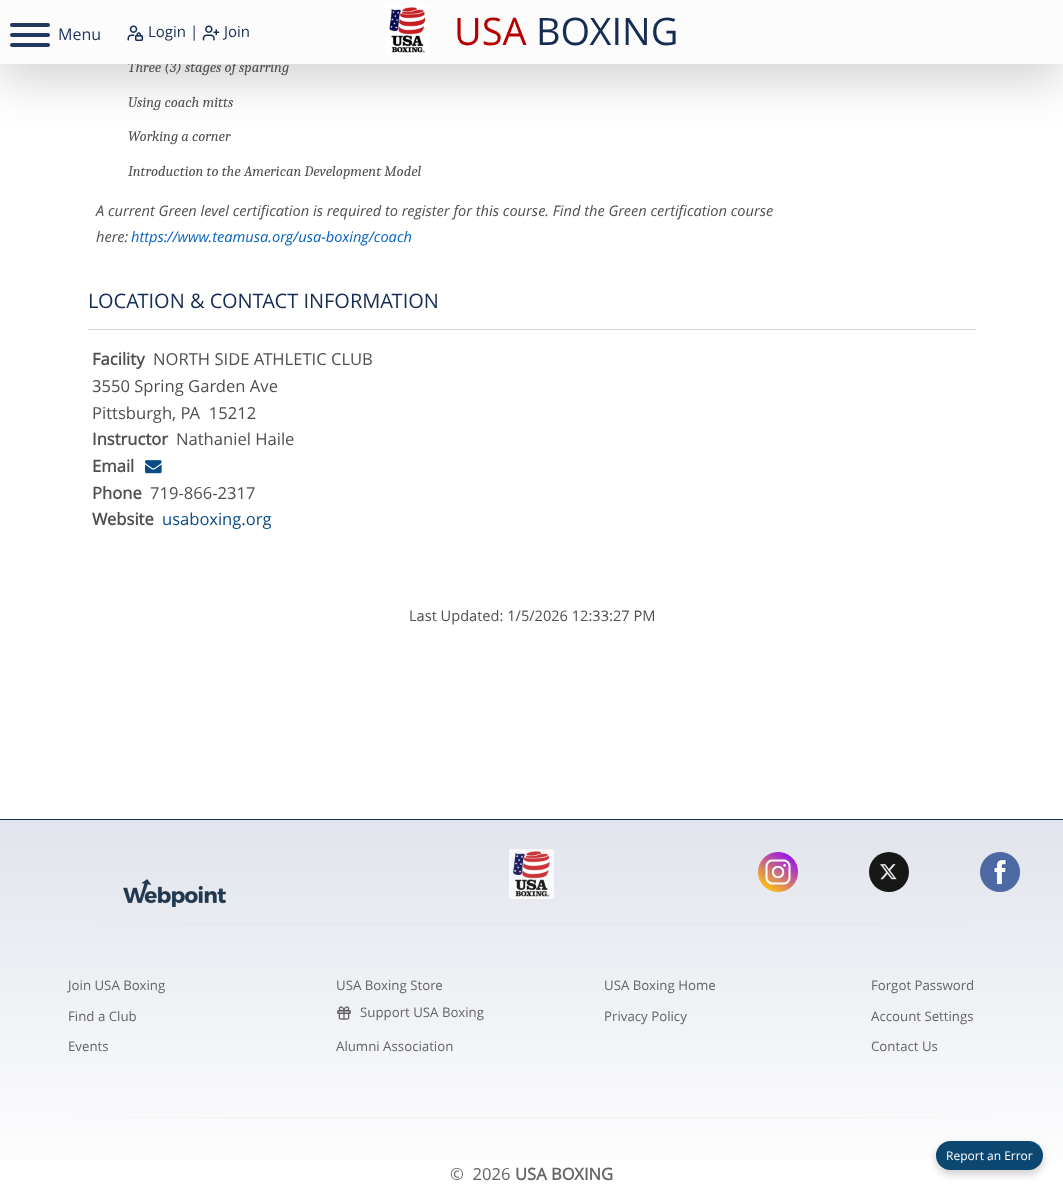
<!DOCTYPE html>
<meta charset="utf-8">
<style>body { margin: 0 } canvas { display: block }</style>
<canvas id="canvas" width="1063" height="1190"></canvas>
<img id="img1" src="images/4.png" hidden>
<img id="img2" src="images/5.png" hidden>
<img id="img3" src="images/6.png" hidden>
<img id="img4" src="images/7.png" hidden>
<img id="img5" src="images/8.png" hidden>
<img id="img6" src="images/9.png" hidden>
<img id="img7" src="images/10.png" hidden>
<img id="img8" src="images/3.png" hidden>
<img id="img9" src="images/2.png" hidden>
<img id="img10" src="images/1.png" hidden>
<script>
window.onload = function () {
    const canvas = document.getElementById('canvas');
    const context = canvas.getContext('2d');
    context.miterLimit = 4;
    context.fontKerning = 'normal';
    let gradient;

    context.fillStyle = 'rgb(255, 255, 255)';
    context.fillRect(0, 0, 1063, 1190);
    context.fillStyle = 'rgba(0, 0, 0, 0.18)';
    context.filter = 'blur(24px)';
    context.beginPath();
    context.rect(0, 16, 1063, 64);
    context.fill();
    context.filter = 'none';
    context.fillStyle = 'rgb(211, 211, 211)';
    context.fillRect(88, 329, 888, 1);
    context.drawImage(document.getElementById('img1'), 145, 460, 17, 14);
    gradient = context.createLinearGradient(532, 820, 532, 1190);
    gradient.addColorStop(0, 'rgb(225, 228, 236)');
    gradient.addColorStop(1, 'rgb(255, 255, 255)');
    context.fillStyle = gradient;
    context.fillRect(0, 820, 1063, 339);
    context.fillStyle = 'rgba(0, 0, 0, 0.2)';
    context.filter = 'blur(4px)';
    context.beginPath();
    context.roundRect(936, 1145, 107, 29, 14.5);
    context.fill();
    context.filter = 'none';
    context.fillStyle = 'rgb(11, 71, 113)';
    context.beginPath();
    context.roundRect(936, 1141, 107, 29, 14.5);
    context.fill();
    context.fillStyle = 'rgb(21, 44, 83)';
    context.fillRect(0, 819, 1063, 1);
    context.drawImage(document.getElementById('img2'), 123, 879, 103, 28);
    context.fillStyle = 'rgba(255, 255, 255, 0.77)';
    context.beginPath();
    context.roundRect(509, 849, 45, 50, 2);
    context.fill();
    context.drawImage(document.getElementById('img3'), 513, 851, 37, 46);
    context.drawImage(document.getElementById('img4'), 758, 852, 40, 40);
    context.fillStyle = 'rgba(0, 0, 0, 0.9)';
    context.beginPath();
    context.arc(889, 872, 20, 0, 2 * Math.PI);
    context.fill();
    context.drawImage(document.getElementById('img5'), 880, 864, 17, 16);
    context.drawImage(document.getElementById('img6'), 980, 852, 40, 40);
    gradient = context.createLinearGradient(12, 924, 1051, 924);
    gradient.addColorStop(0, 'rgb(233, 236, 241)');
    gradient.addColorStop(0.25, 'rgb(226, 229, 233)');
    gradient.addColorStop(0.75, 'rgb(226, 229, 233)');
    gradient.addColorStop(1, 'rgb(233, 236, 241)');
    context.fillStyle = gradient;
    context.fillRect(93, 923, 877, 1);
    context.drawImage(document.getElementById('img7'), 337, 1006, 14, 14);
    gradient = context.createLinearGradient(12, 1118, 1051, 1118);
    gradient.addColorStop(0, 'rgb(249, 250, 251)');
    gradient.addColorStop(0.25, 'rgb(239, 240, 240)');
    gradient.addColorStop(0.75, 'rgb(239, 240, 240)');
    gradient.addColorStop(1, 'rgb(249, 250, 251)');
    context.fillStyle = gradient;
    context.fillRect(71, 1117, 921, 1);
    context.font = 'italic 14.65px Caladea';
    context.fillStyle = 'rgb(79, 79, 79)';
    context.fillText('Three (3) stages of sparring', 128, 72);
    context.fillStyle = 'rgb(252, 252, 252)';
    context.fillRect(0, 0, 1063, 64);
    context.font = '38px Open Sans';
    context.fillStyle = 'rgb(21, 44, 83)';
    context.fillText('BOXING', 536, 45);
    context.fillStyle = 'rgb(182, 0, 0)';
    context.fillText('USA', 454, 45);
    context.fillStyle = 'rgb(255, 255, 255)';
    context.beginPath();
    context.roundRect(385, 5, 44, 50, 2);
    context.fill();
    context.drawImage(document.getElementById('img8'), 389, 7, 37, 46);
    context.drawImage(document.getElementById('img9'), 202, 25, 18, 16);
    context.drawImage(document.getElementById('img10'), 127, 25, 16, 16);
    context.font = '15px Open Sans';
    context.fillStyle = 'rgb(21, 44, 83)';
    context.fillText('Join', 224, 37);
    context.fillText('Login |', 148, 37);
    context.fillStyle = 'rgb(35, 56, 93)';
    context.beginPath();
    context.roundRect(10, 43, 40, 4, 2);
    context.fill();
    context.beginPath();
    context.roundRect(10, 33, 40, 4, 2);
    context.fill();
    context.beginPath();
    context.roundRect(10, 23, 40, 4, 2);
    context.fill();
    context.font = '16px Open Sans';
    context.fillText('Menu', 58, 40);
    context.font = 'italic 14.65px Caladea';
    context.fillStyle = 'rgb(79, 79, 79)';
    context.fillText('Using coach mitts', 128, 107);
    context.fillText('Working a corner', 128, 141);
    context.fillText('Introduction to the American Development Model', 128, 176);
    context.font = 'italic 14.65px Open Sans';
    context.fillText('A current Green level certification is required to register for this course. Find the Green certification course', 96, 216);
    context.fillText('here:', 96, 242);
    context.fillStyle = 'rgb(5, 99, 193)';
    context.fillText('https://www.teamusa.org/usa-boxing/coach', 131, 242);
    context.font = '20px Open Sans';
    context.fillStyle = 'rgb(21, 44, 83)';
    context.fillText('LOCATION & CONTACT INFORMATION', 88, 308);
    context.font = 'bold 16.6px Open Sans';
    context.fillStyle = 'rgb(79, 79, 79)';
    context.fillText('Facility', 92, 365);
    context.font = '16.6px Open Sans';
    context.fillText('NORTH SIDE ATHLETIC CLUB', 153, 365);
    context.fillText('3550 Spring Garden Ave', 92, 392);
    context.fillText('Pittsburgh, PA  15212', 92, 419);
    context.font = 'bold 16.6px Open Sans';
    context.fillText('Instructor', 92, 445);
    context.font = '16.6px Open Sans';
    context.fillText('Nathaniel Haile', 176, 445);
    context.font = 'bold 16.6px Open Sans';
    context.fillText('Email', 92, 472);
    context.fillText('Phone', 92, 499);
    context.font = '16.6px Open Sans';
    context.fillText('719-866-2317', 150, 499);
    context.font = 'bold 16.6px Open Sans';
    context.fillText('Website', 92, 525);
    context.font = '16.6px Open Sans';
    context.fillStyle = 'rgb(9, 75, 135)';
    context.fillText('usaboxing.org', 162, 525);
    context.font = '14.6px Open Sans';
    context.fillStyle = 'rgb(79, 79, 79)';
    context.fillText('Last Updated: 1/5/2026 12:33:27 PM', 409, 621);
    context.font = '12px Open Sans';
    context.fillStyle = 'rgb(255, 255, 255)';
    context.fillText('Report an Error', 946, 1160);
    context.font = '13.25px Open Sans';
    context.fillStyle = 'rgb(100, 101, 101)';
    context.fillText('Join USA Boxing', 68, 990);
    context.fillText('Find a Club', 68, 1021);
    context.fillText('Events', 68, 1051);
    context.fillText('USA Boxing Store', 336, 990);
    context.fillText('Support USA Boxing', 360, 1017);
    context.fillText('Alumni Association', 336, 1051);
    context.fillText('USA Boxing Home', 604, 990);
    context.fillText('Privacy Policy', 604, 1021);
    context.fillText('Forgot Password', 871, 990);
    context.fillText('Account Settings', 871, 1021);
    context.fillText('Contact Us', 871, 1051);
    context.font = '16.6px Open Sans';
    context.fillText('©  2026', 450, 1180);
    context.font = 'bold 16.6px Open Sans';
    context.fillText('USA BOXING', 515, 1180);
};
</script>
